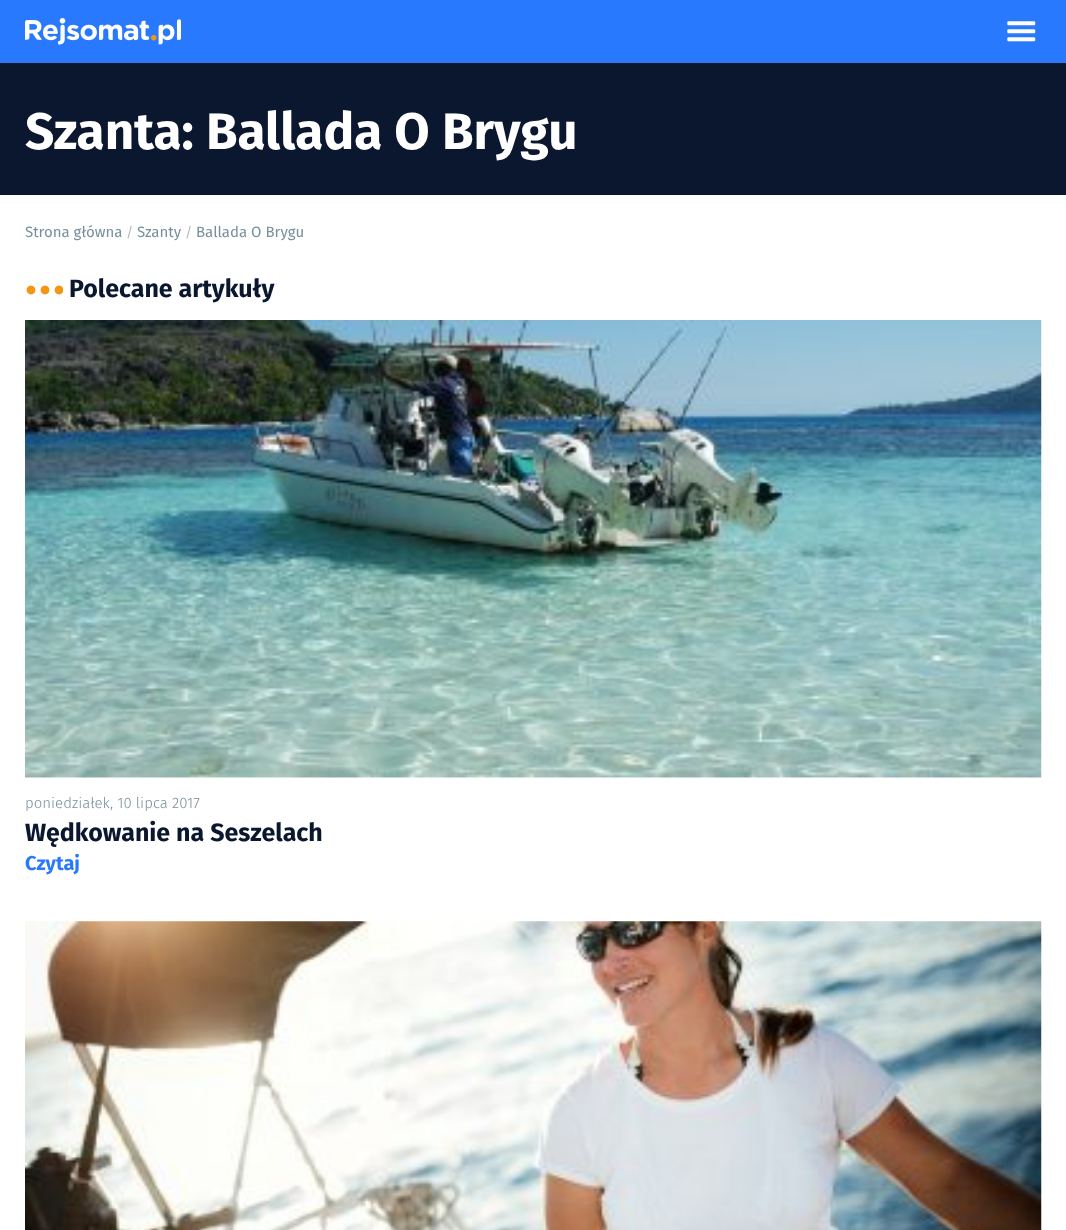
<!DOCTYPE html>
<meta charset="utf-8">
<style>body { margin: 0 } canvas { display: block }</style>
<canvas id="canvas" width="1066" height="1230"></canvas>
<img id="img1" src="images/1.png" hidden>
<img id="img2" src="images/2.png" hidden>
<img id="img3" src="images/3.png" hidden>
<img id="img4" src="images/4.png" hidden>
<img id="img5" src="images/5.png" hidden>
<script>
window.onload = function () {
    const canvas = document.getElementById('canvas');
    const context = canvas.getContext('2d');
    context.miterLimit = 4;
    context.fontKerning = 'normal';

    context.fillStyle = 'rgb(255, 255, 255)';
    context.fillRect(0, 0, 1066, 1230);
    context.fillStyle = 'rgb(41, 121, 255)';
    context.fillRect(0, 0, 1066, 63);
    context.drawImage(document.getElementById('img1'), 25, 18, 156, 27);
    context.drawImage(document.getElementById('img2'), 1007, 21, 29, 21);
    context.fillStyle = 'rgb(10, 23, 47)';
    context.fillRect(0, 63, 1066, 132);
    context.drawImage(document.getElementById('img3'), 26, 285, 37, 10);
    context.drawImage(document.getElementById('img4'), 25, 320, 1017, 458);
    context.drawImage(document.getElementById('img5'), 25, 921, 1017, 309);
    context.font = 'bold 51.25px Fira Sans';
    context.fillStyle = 'rgb(255, 255, 255)';
    context.fillText('Szanta: Ballada O Brygu', 25, 149);
    context.font = '15px Fira Sans';
    context.fillStyle = 'rgb(120, 144, 156)';
    context.fillText('Strona główna', 25, 237);
    context.font = '14px Fira Sans';
    context.fillStyle = 'rgb(184, 184, 184)';
    context.fillText('/', 126, 237);
    context.font = '15px Fira Sans';
    context.fillStyle = 'rgb(120, 144, 156)';
    context.fillText('Szanty', 137, 237);
    context.font = '14px Fira Sans';
    context.fillStyle = 'rgb(184, 184, 184)';
    context.fillText('/', 185, 237);
    context.font = '15px Fira Sans';
    context.fillStyle = 'rgb(120, 144, 156)';
    context.fillText('Ballada O Brygu', 196, 237);
    context.font = 'bold 25px Fira Sans';
    context.fillStyle = 'rgb(10, 23, 47)';
    context.fillText('Polecane artykuły', 69, 297);
    context.font = '300 15px Fira Sans';
    context.fillStyle = 'rgb(120, 144, 156)';
    context.fillText('poniedziałek, 10 lipca 2017', 25, 808);
    context.font = 'bold 25px Fira Sans';
    context.fillStyle = 'rgb(10, 23, 47)';
    context.fillText('Wędkowanie na Seszelach', 25, 841);
    context.font = 'bold 20px Fira Sans';
    context.fillStyle = 'rgb(41, 121, 255)';
    context.fillText('Czytaj', 25, 870);
};
</script>
